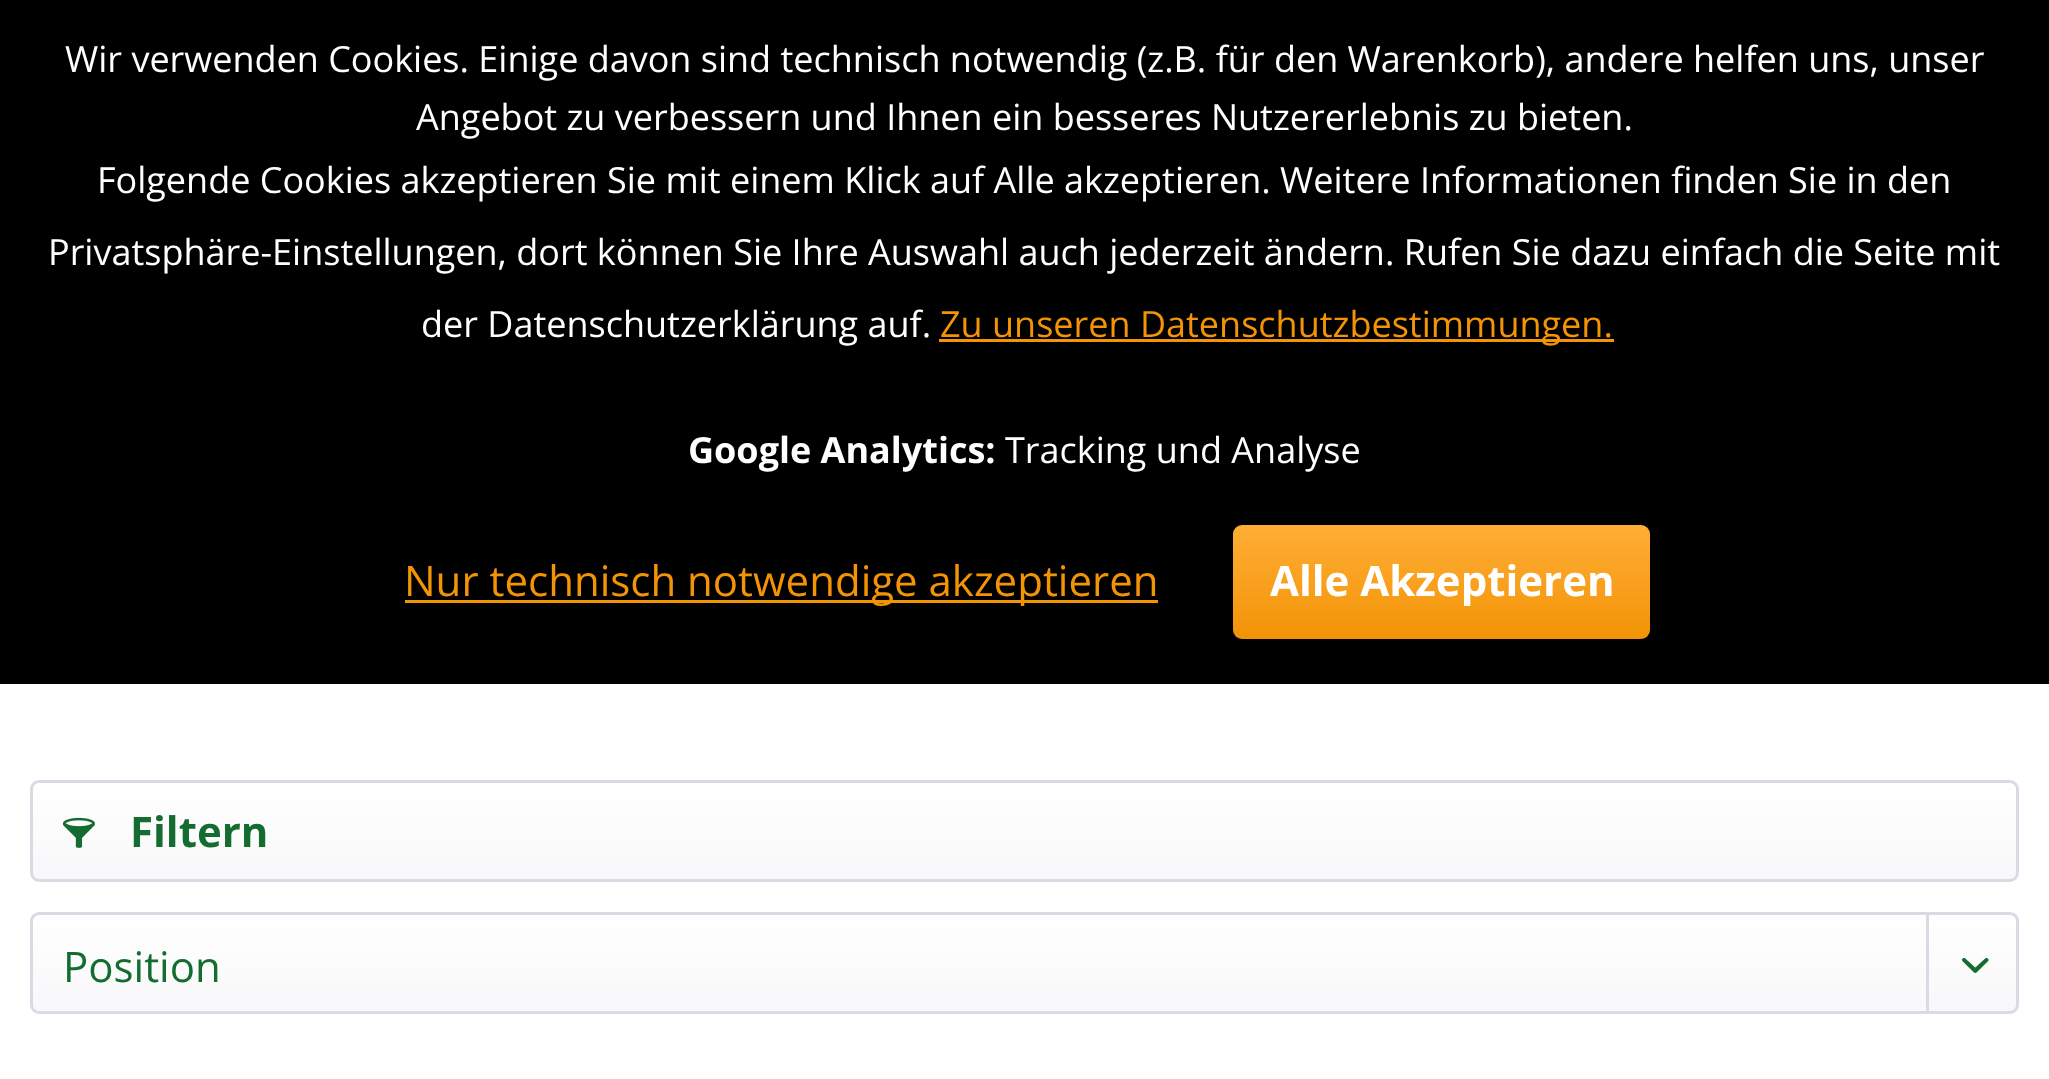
<!DOCTYPE html>
<meta charset="utf-8">
<style>body { margin: 0 } canvas { display: block }</style>
<canvas id="canvas" width="2049" height="1079"></canvas>
<img id="img1" src="images/1.png" hidden>
<img id="img2" src="images/2.png" hidden>
<script>
window.onload = function () {
    const canvas = document.getElementById('canvas');
    const context = canvas.getContext('2d');
    context.miterLimit = 4;
    context.fontKerning = 'normal';
    let gradient;

    context.fillStyle = 'rgb(255, 255, 255)';
    context.fillRect(0, 0, 2049, 1079);
    context.fillStyle = 'rgb(0, 0, 0)';
    context.fillRect(0, 0, 2049, 684);
    context.fillStyle = 'rgb(243, 147, 6)';
    context.fillRect(939, 339, 675, 3);
    context.fillRect(405, 600, 753, 3);
    gradient = context.createLinearGradient(1442, 525, 1442, 639);
    gradient.addColorStop(0, 'rgb(255, 174, 55)');
    gradient.addColorStop(1, 'rgb(243, 147, 6)');
    context.fillStyle = gradient;
    context.beginPath();
    context.roundRect(1233, 525, 417, 114, 9);
    context.fill();
    gradient = context.createLinearGradient(1025, 783, 1025, 879);
    gradient.addColorStop(0, 'rgb(255, 255, 255)');
    gradient.addColorStop(1, 'rgb(248, 248, 250)');
    context.fillStyle = gradient;
    context.beginPath();
    context.roundRect(33, 783, 1983, 96, 6);
    context.fill();
    context.beginPath();
    context.roundRect(31.5, 781.5, 1986, 99, 7.5);
    context.strokeStyle = 'rgb(218, 218, 229)';
    context.lineWidth = 3;
    context.stroke();
    context.drawImage(document.getElementById('img1'), 63, 817, 32, 31);
    gradient = context.createLinearGradient(1025, 915, 1025, 1011);
    gradient.addColorStop(0, 'rgb(255, 255, 255)');
    gradient.addColorStop(1, 'rgb(248, 248, 250)');
    context.fillStyle = gradient;
    context.beginPath();
    context.roundRect(33, 915, 1983, 96, 6);
    context.fill();
    context.beginPath();
    context.roundRect(31.5, 913.5, 1986, 99, 7.5);
    context.stroke();
    context.fillStyle = 'rgb(218, 218, 229)';
    context.fillRect(1926, 915, 3, 99);
    context.drawImage(document.getElementById('img2'), 1962, 958, 27, 15);
    context.font = '36px Open Sans';
    context.fillStyle = 'rgb(255, 255, 255)';
    context.fillText('Wir verwenden Cookies. Einige davon sind technisch notwendig (z.B. für den Warenkorb), andere helfen uns, unser', 65, 72);
    context.fillText('Angebot zu verbessern und Ihnen ein besseres Nutzererlebnis zu bieten.', 416, 130);
    context.fillText('Folgende Cookies akzeptieren Sie mit einem Klick auf Alle akzeptieren. Weitere Informationen finden Sie in den', 97, 193);
    context.fillText('Privatsphäre-Einstellungen, dort können Sie Ihre Auswahl auch jederzeit ändern. Rufen Sie dazu einfach die Seite mit', 48, 265);
    context.fillText('der Datenschutzerklärung auf.', 421, 337);
    context.fillStyle = 'rgb(243, 147, 6)';
    context.fillText('Zu unseren Datenschutzbestimmungen.', 940, 337);
    context.font = 'bold 36px Open Sans';
    context.fillStyle = 'rgb(255, 255, 255)';
    context.fillText('Google Analytics:', 688, 463);
    context.font = '36px Open Sans';
    context.fillText('Tracking und Analyse', 1005, 463);
    context.font = '42px Open Sans';
    context.fillStyle = 'rgb(243, 147, 6)';
    context.fillText('Nur technisch notwendige akzeptieren', 404, 596);
    context.font = 'bold 42px Open Sans';
    context.fillStyle = 'rgb(255, 255, 255)';
    context.fillText('Alle Akzeptieren', 1270, 596);
    context.fillStyle = 'rgb(21, 108, 48)';
    context.fillText('Filtern', 130, 847);
    context.font = '42px Open Sans';
    context.fillText('Position', 63, 982);
};
</script>
